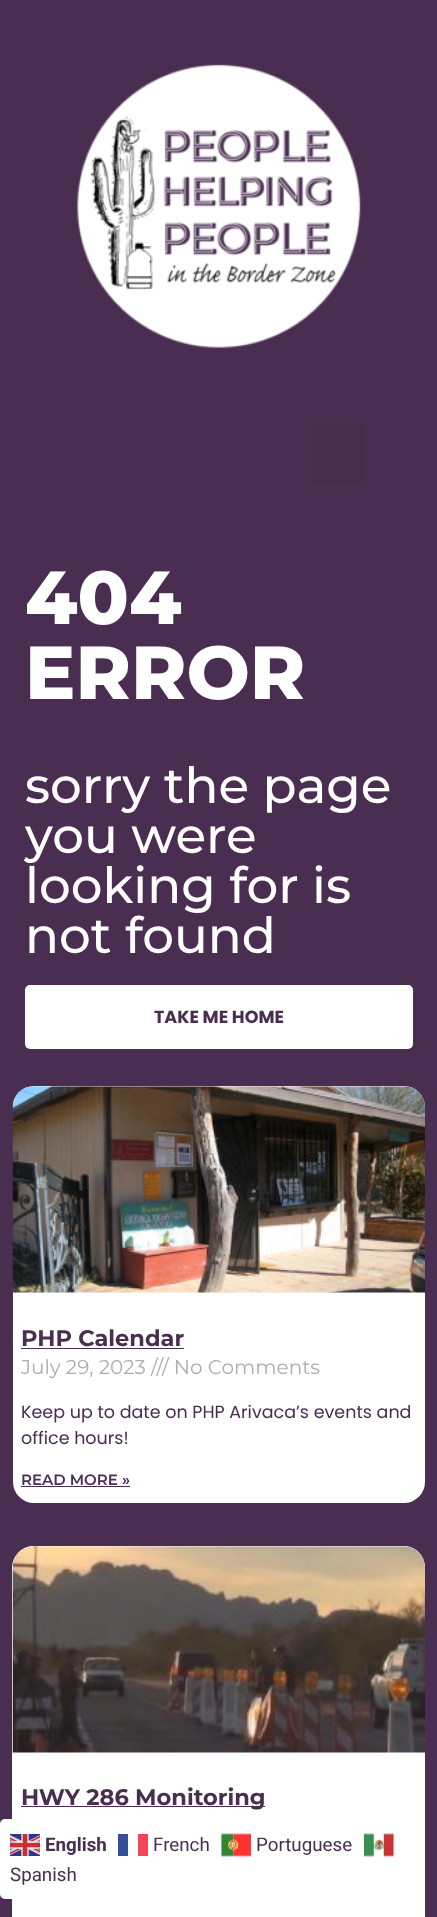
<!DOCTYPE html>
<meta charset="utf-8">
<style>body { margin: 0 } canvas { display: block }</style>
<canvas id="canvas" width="437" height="1917"></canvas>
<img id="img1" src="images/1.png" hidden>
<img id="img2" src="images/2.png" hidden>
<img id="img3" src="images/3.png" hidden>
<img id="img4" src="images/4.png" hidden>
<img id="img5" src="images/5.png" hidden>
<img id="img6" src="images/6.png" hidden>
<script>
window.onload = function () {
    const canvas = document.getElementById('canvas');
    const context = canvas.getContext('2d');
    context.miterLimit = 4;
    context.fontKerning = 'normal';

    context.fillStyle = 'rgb(74, 46, 81)';
    context.fillRect(0, 0, 437, 1917);
    context.drawImage(document.getElementById('img1'), 76, 64, 285, 285);
    context.fillStyle = 'rgb(70, 44, 77)';
    context.beginPath();
    context.roundRect(311, 425, 52, 60, 4);
    context.fill();
    context.fillStyle = 'rgb(255, 255, 255)';
    context.beginPath();
    context.roundRect(25, 985, 388, 64, 5);
    context.fill();
    context.beginPath();
    context.roundRect(13, 1086, 412, 417, 21);
    context.fill();
    context.drawImage(document.getElementById('img2'), 12, 1086, 413, 207);
    context.fillStyle = 'rgb(74, 46, 81)';
    context.fillRect(21, 1348, 163, 1);
    context.fillRect(21, 1486, 109, 1);
    context.fillStyle = 'rgb(255, 255, 255)';
    context.beginPath();
    context.moveTo(33, 1546);
    context.lineTo(404, 1546);
    context.bezierCurveTo(416, 1546, 425, 1556, 425, 1568);
    context.lineTo(425, 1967);
    context.bezierCurveTo(425, 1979, 416, 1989, 404, 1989);
    context.lineTo(33, 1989);
    context.bezierCurveTo(22, 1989, 12, 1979, 12, 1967);
    context.lineTo(12, 1568);
    context.bezierCurveTo(12, 1556, 22, 1546, 33, 1546);
    context.closePath();
    context.fill();
    context.drawImage(document.getElementById('img3'), 12, 1546, 413, 207);
    context.fillStyle = 'rgb(74, 46, 81)';
    context.fillRect(21, 1806, 244, 1);
    context.fillStyle = 'rgb(255, 255, 255)';
    context.beginPath();
    context.roundRect(0, 1819, 419, 80, 5);
    context.fill();
    context.drawImage(document.getElementById('img4'), 10, 1834, 30, 22);
    context.fillStyle = 'rgb(51, 81, 153)';
    context.fillRect(118, 1834, 10, 22);
    context.fillStyle = 'rgb(245, 70, 89)';
    context.fillRect(138, 1834, 10, 22);
    context.drawImage(document.getElementById('img5'), 221, 1833, 30, 24);
    context.drawImage(document.getElementById('img6'), 364, 1833, 30, 24);
    context.font = '800 75px Montserrat';
    context.fillStyle = 'rgb(255, 255, 255)';
    context.fillText('404', 25, 624);
    context.fillText('ERROR', 25, 699);
    context.font = '500 50px Montserrat';
    context.fillText('sorry the page', 25, 803);
    context.fillText('you were', 25, 853);
    context.fillText('looking for is', 25, 903);
    context.fillText('not found', 25, 953);
    context.font = 'bold 17.5px Poppins';
    context.fillStyle = 'rgb(74, 46, 81)';
    context.fillText('TAKE ME HOME', 154, 1023);
    context.font = 'bold 22.5px Montserrat';
    context.fillText('PHP Calendar', 21, 1346);
    context.font = '20px Montserrat';
    context.fillStyle = 'rgb(173, 173, 173)';
    context.fillText('July 29, 2023 /// No Comments', 21, 1374);
    context.font = '17.5px Poppins';
    context.fillStyle = 'rgb(74, 46, 81)';
    context.fillText('Keep up to date on PHP Arivaca’s events and', 21, 1418);
    context.fillText('office hours!', 21, 1444);
    context.font = '600 15px Montserrat';
    context.fillText('READ MORE »', 21, 1485);
    context.font = 'bold 22.5px Montserrat';
    context.fillText('HWY 286 Monitoring', 21, 1805);
    context.font = 'bold 18.75px Roboto';
    context.fillText('English', 45, 1851);
    context.font = '18.75px Roboto';
    context.fillText('French', 153, 1851);
    context.fillText('Portuguese', 256, 1851);
    context.fillText('Spanish', 10, 1881);
};
</script>
